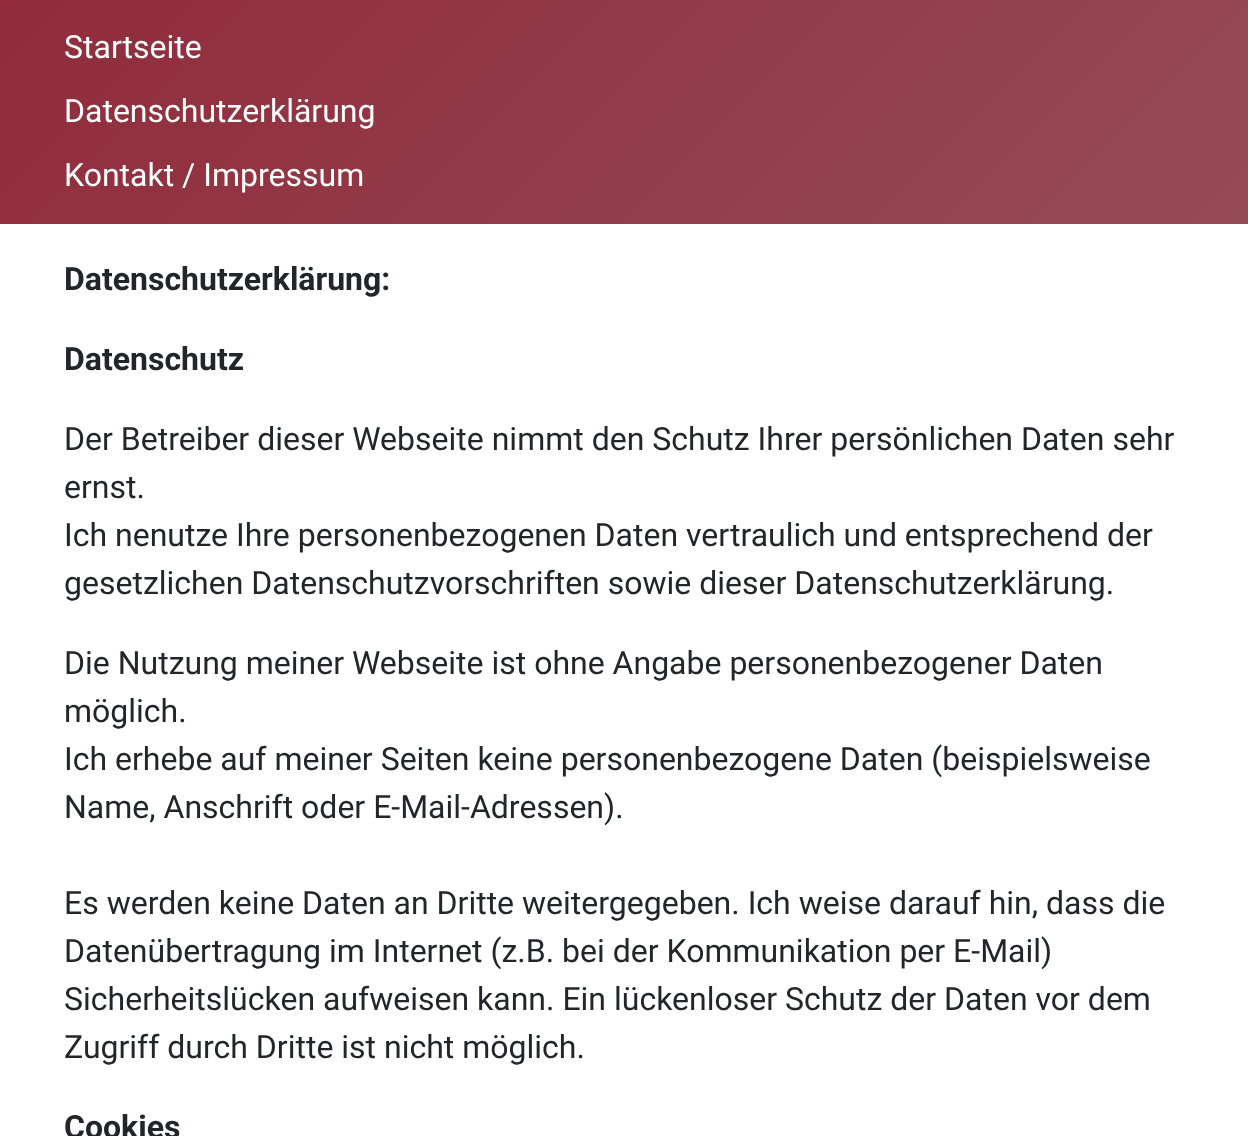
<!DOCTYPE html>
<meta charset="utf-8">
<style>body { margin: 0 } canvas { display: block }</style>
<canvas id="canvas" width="1248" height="1136"></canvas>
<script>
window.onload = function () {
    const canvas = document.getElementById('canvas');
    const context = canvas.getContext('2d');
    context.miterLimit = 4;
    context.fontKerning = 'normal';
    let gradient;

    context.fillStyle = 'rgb(255, 255, 255)';
    context.fillRect(0, 0, 1248, 1136);
    gradient = context.createLinearGradient(256, -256, 992, 480);
    gradient.addColorStop(0, 'rgb(145, 43, 59)');
    gradient.addColorStop(1, 'rgb(149, 75, 86)');
    context.fillStyle = gradient;
    context.fillRect(0, 0, 1248, 224);
    context.font = '32px Roboto';
    context.fillStyle = 'rgb(255, 255, 255)';
    context.fillText('Startseite', 64, 58);
    context.fillText('Datenschutzerklärung', 64, 122);
    context.fillText('Kontakt / Impressum', 64, 186);
    context.font = 'bold 32px Roboto';
    context.fillStyle = 'rgb(34, 38, 42)';
    context.fillText('Datenschutzerklärung:', 64, 290);
    context.fillText('Datenschutz', 64, 370);
    context.font = '32px Roboto';
    context.fillText('Der Betreiber dieser Webseite nimmt den Schutz Ihrer persönlichen Daten sehr', 64, 450);
    context.fillText('ernst.', 64, 498);
    context.fillText('Ich nenutze Ihre personenbezogenen Daten vertraulich und entsprechend der', 64, 546);
    context.fillText('gesetzlichen Datenschutzvorschriften sowie dieser Datenschutzerklärung.', 64, 594);
    context.fillText('Die Nutzung meiner Webseite ist ohne Angabe personenbezogener Daten', 64, 674);
    context.fillText('möglich.', 64, 722);
    context.fillText('Ich erhebe auf meiner Seiten keine personenbezogene Daten (beispielsweise', 64, 770);
    context.fillText('Name, Anschrift oder E-Mail-Adressen).', 64, 818);
    context.fillText('Es werden keine Daten an Dritte weitergegeben. Ich weise darauf hin, dass die', 64, 914);
    context.fillText('Datenübertragung im Internet (z.B. bei der Kommunikation per E-Mail)', 64, 962);
    context.fillText('Sicherheitslücken aufweisen kann. Ein lückenloser Schutz der Daten vor dem', 64, 1010);
    context.fillText('Zugriff durch Dritte ist nicht möglich.', 64, 1058);
    context.font = 'bold 32px Roboto';
    context.fillText('Cookies', 64, 1138);
};
</script>
